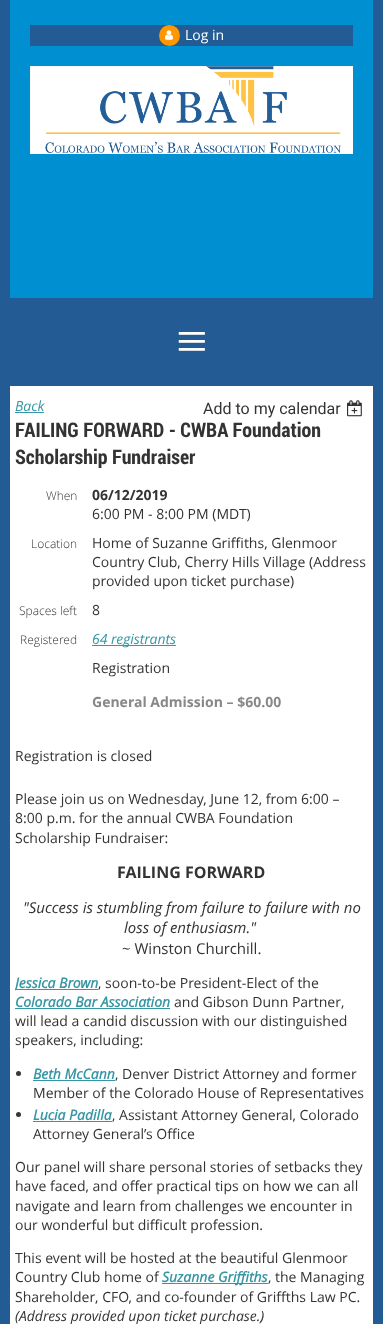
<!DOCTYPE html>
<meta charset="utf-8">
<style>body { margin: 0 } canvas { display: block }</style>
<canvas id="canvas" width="383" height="1324"></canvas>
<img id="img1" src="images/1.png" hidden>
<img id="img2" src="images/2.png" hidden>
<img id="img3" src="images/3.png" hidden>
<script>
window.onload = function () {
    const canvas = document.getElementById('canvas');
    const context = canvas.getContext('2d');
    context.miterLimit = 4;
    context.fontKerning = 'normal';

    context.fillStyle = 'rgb(35, 92, 148)';
    context.fillRect(0, 0, 383, 1324);
    context.fillStyle = 'rgb(0, 143, 209)';
    context.fillRect(10, 0, 363, 298);
    context.fillStyle = 'rgb(35, 92, 148)';
    context.fillRect(30, 25, 323, 21);
    context.fillStyle = 'rgb(254, 151, 1)';
    context.beginPath();
    context.arc(169.5, 35.5, 9.5, 0, 2 * Math.PI);
    context.fill();
    context.strokeStyle = 'rgb(254, 151, 1)';
    context.lineWidth = 2;
    context.stroke();
    context.drawImage(document.getElementById('img1'), 165, 30, 8, 10);
    context.drawImage(document.getElementById('img2'), 30, 66, 323, 88);
    context.fillStyle = 'rgb(255, 255, 255)';
    context.fillRect(10, 386, 363, 938);
    context.fillStyle = 'rgb(54, 150, 164)';
    context.fillRect(15, 412, 29, 1);
    context.drawImage(document.getElementById('img3'), 347, 400, 15, 17);
    context.fillRect(92, 645, 84, 1);
    context.fillRect(15, 989, 83, 1);
    context.fillRect(15, 1008, 155, 1);
    context.fillStyle = 'rgb(55, 55, 55)';
    context.beginPath();
    context.arc(18.5, 1073.5, 2.5, 0, 2 * Math.PI);
    context.fill();
    context.fillStyle = 'rgb(54, 150, 164)';
    context.fillRect(33, 1080, 82, 1);
    context.fillStyle = 'rgb(55, 55, 55)';
    context.beginPath();
    context.arc(18.5, 1114.5, 2.5, 0, 2 * Math.PI);
    context.fill();
    context.fillStyle = 'rgb(54, 150, 164)';
    context.fillRect(33, 1121, 79, 1);
    context.fillRect(162, 1283, 106, 1);
    context.font = '14px Open Sans';
    context.fillStyle = 'rgb(255, 255, 255)';
    context.fillText('Log in', 185, 40);
    context.font = '56px Liberation Serif';
    context.fillText('≡', 176, 360);
    context.font = 'italic 14px Open Sans';
    context.fillStyle = 'rgb(54, 150, 164)';
    context.fillText('Back', 15, 411);
    context.font = '16px Roboto';
    context.fillStyle = 'rgb(51, 51, 51)';
    context.fillText('Add to my calendar', 203, 414);
    context.font = 'bold 20px Roboto Condensed';
    context.fillText('FAILING FORWARD - CWBA Foundation', 15, 437);
    context.fillText('Scholarship Fundraiser', 15, 464);
    context.font = '300 12px Open Sans';
    context.fillText('When', 46, 500);
    context.font = 'bold 14px Open Sans';
    context.fillText('06/12/2019', 92, 500);
    context.font = '14px Open Sans';
    context.fillText('6:00 PM - 8:00 PM (MDT)', 92, 519);
    context.font = '300 12px Open Sans';
    context.fillText('Location', 31, 548);
    context.font = '14px Open Sans';
    context.fillText('Home of Suzanne Griffiths, Glenmoor', 92, 548);
    context.fillText('Country Club, Cherry Hills Village (Address', 92, 567);
    context.fillText('provided upon ticket purchase)', 92, 586);
    context.font = '300 12px Open Sans';
    context.fillText('Spaces left', 19, 615);
    context.font = '14px Open Sans';
    context.fillText('8', 92, 615);
    context.font = '300 12px Open Sans';
    context.fillText('Registered', 20, 644);
    context.font = 'italic 14px Open Sans';
    context.fillStyle = 'rgb(54, 150, 164)';
    context.fillText('64 registrants', 92, 644);
    context.font = '14px Open Sans';
    context.fillStyle = 'rgb(51, 51, 51)';
    context.fillText('Registration', 92, 673);
    context.font = 'bold 14px Open Sans';
    context.fillStyle = 'rgb(136, 136, 136)';
    context.fillText('General Admission – $60.00', 92, 707);
    context.font = '14px Open Sans';
    context.fillStyle = 'rgb(51, 51, 51)';
    context.fillText('Registration is closed', 15, 761);
    context.fillText('Please join us on Wednesday, June 12, from 6:00 –', 15, 804);
    context.fillText('8:00 p.m. for the annual CWBA Foundation', 15, 823);
    context.fillText('Scholarship Fundraiser:', 15, 843);
    context.font = 'bold 16px Open Sans';
    context.fillText('FAILING FORWARD', 117, 878);
    context.font = 'italic 15px Open Sans';
    context.fillText('"Success is stumbling from failure to failure with no', 23, 913);
    context.fillText('loss of enthusiasm."', 124, 933);
    context.font = '15px Open Sans';
    context.fillText('~ Winston Churchill.', 122, 954);
    context.save();
    context.beginPath();
    context.rect(15, 391, 353, 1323);
    context.clip();
    context.font = 'italic bold 14px Open Sans';
    context.fillStyle = 'rgb(54, 150, 164)';
    context.fillText('Jessica Brown', 15, 988);
    context.restore();
    context.font = '14px Open Sans';
    context.fillText(', soon-to-be President-Elect of the', 98, 988);
    context.font = 'italic bold 14px Open Sans';
    context.fillStyle = 'rgb(54, 150, 164)';
    context.fillText('Colorado Bar Association', 15, 1007);
    context.font = '14px Open Sans';
    context.fillStyle = 'rgb(51, 51, 51)';
    context.fillText('and Gibson Dunn Partner,', 174, 1007);
    context.fillText('will lead a candid discussion with our distinguished', 15, 1026);
    context.fillText('speakers, including:', 15, 1045);
    context.font = 'italic bold 14px Open Sans';
    context.fillStyle = 'rgb(54, 150, 164)';
    context.fillText('Beth McCann', 33, 1079);
    context.font = '14px Open Sans';
    context.fillStyle = 'rgb(51, 51, 51)';
    context.fillText(', Denver District Attorney and former', 115, 1079);
    context.fillText('Member of the Colorado House of Representatives', 33, 1098);
    context.font = 'italic bold 14px Open Sans';
    context.fillStyle = 'rgb(54, 150, 164)';
    context.fillText('Lucia Padilla', 33, 1120);
    context.font = '14px Open Sans';
    context.fillStyle = 'rgb(51, 51, 51)';
    context.fillText(', Assistant Attorney General, Colorado', 112, 1120);
    context.fillText('Attorney General’s Office', 33, 1139);
    context.fillText('Our panel will share personal stories of setbacks they', 15, 1172);
    context.fillText('have faced, and offer practical tips on how we can all', 15, 1191);
    context.fillText('navigate and learn from challenges we encounter in', 15, 1211);
    context.fillText('our wonderful but difficult profession.', 15, 1230);
    context.fillText('This event will be hosted at the beautiful Glenmoor', 15, 1263);
    context.fillText('Country Club home of', 15, 1282);
    context.font = 'italic bold 14px Open Sans';
    context.fillStyle = 'rgb(54, 150, 164)';
    context.fillText('Suzanne Griffiths', 162, 1282);
    context.font = '14px Open Sans';
    context.fillStyle = 'rgb(51, 51, 51)';
    context.fillText(', the Managing', 268, 1282);
    context.fillText('Shareholder, CFO, and co-founder of Griffths Law PC.', 15, 1302);
    context.font = 'italic 14px Open Sans';
    context.fillText('(Address provided upon ticket purchase.)', 15, 1321);
};
</script>
